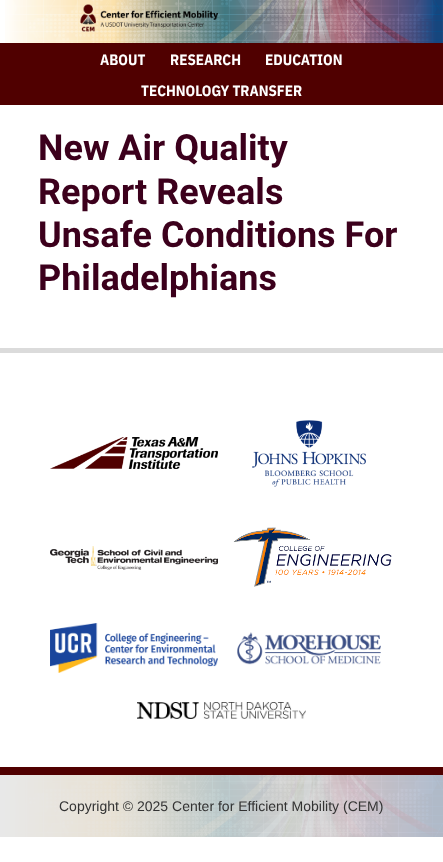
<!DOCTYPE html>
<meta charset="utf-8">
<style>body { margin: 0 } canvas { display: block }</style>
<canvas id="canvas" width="443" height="862"></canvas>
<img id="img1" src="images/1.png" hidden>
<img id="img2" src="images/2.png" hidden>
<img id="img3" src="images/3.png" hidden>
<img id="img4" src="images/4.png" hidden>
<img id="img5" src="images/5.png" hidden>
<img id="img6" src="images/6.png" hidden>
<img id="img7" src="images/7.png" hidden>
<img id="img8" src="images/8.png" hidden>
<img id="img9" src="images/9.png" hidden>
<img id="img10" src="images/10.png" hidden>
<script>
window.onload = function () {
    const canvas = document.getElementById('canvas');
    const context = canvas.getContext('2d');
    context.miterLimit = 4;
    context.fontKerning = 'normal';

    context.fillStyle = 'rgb(255, 255, 255)';
    context.fillRect(0, 0, 443, 862);
    context.drawImage(document.getElementById('img1'), 5, 0, 438, 43);
    context.drawImage(document.getElementById('img2'), 80, 4, 138, 28);
    context.fillStyle = 'rgb(80, 0, 0)';
    context.fillRect(0, 43, 443, 62);
    context.fillStyle = 'rgb(219, 219, 219)';
    context.fillRect(0, 348, 443, 5);
    context.drawImage(document.getElementById('img3'), 50, 437, 168, 32);
    context.drawImage(document.getElementById('img4'), 252, 420, 114, 67);
    context.drawImage(document.getElementById('img5'), 50, 546, 168, 24);
    context.drawImage(document.getElementById('img6'), 233, 527, 159, 60);
    context.drawImage(document.getElementById('img7'), 50, 623, 168, 50);
    context.drawImage(document.getElementById('img8'), 237, 632, 144, 33);
    context.drawImage(document.getElementById('img9'), 137, 702, 169, 17);
    context.drawImage(document.getElementById('img10'), 0, 775, 443, 62);
    context.fillStyle = 'rgb(80, 0, 0)';
    context.fillRect(0, 767, 443, 8);
    context.font = 'bold 15px IBM Plex Sans Condensed';
    context.fillStyle = 'rgb(255, 255, 255)';
    context.fillText('ABOUT', 100, 65);
    context.fillText('RESEARCH', 170, 65);
    context.fillText('EDUCATION', 265, 65);
    context.fillText('TECHNOLOGY TRANSFER', 141, 96);
    context.font = 'bold 36px Roboto';
    context.fillStyle = 'rgb(60, 0, 28)';
    context.fillText('New Air Quality', 38, 160);
    context.fillText('Report Reveals', 38, 204);
    context.fillText('Unsafe Conditions For', 38, 247);
    context.fillText('Philadelphians', 38, 290);
    context.font = '14px Liberation Sans';
    context.fillStyle = 'rgb(51, 51, 51)';
    context.fillText('Copyright © 2025 Center for Efficient Mobility (CEM)', 59, 811);
};
</script>
